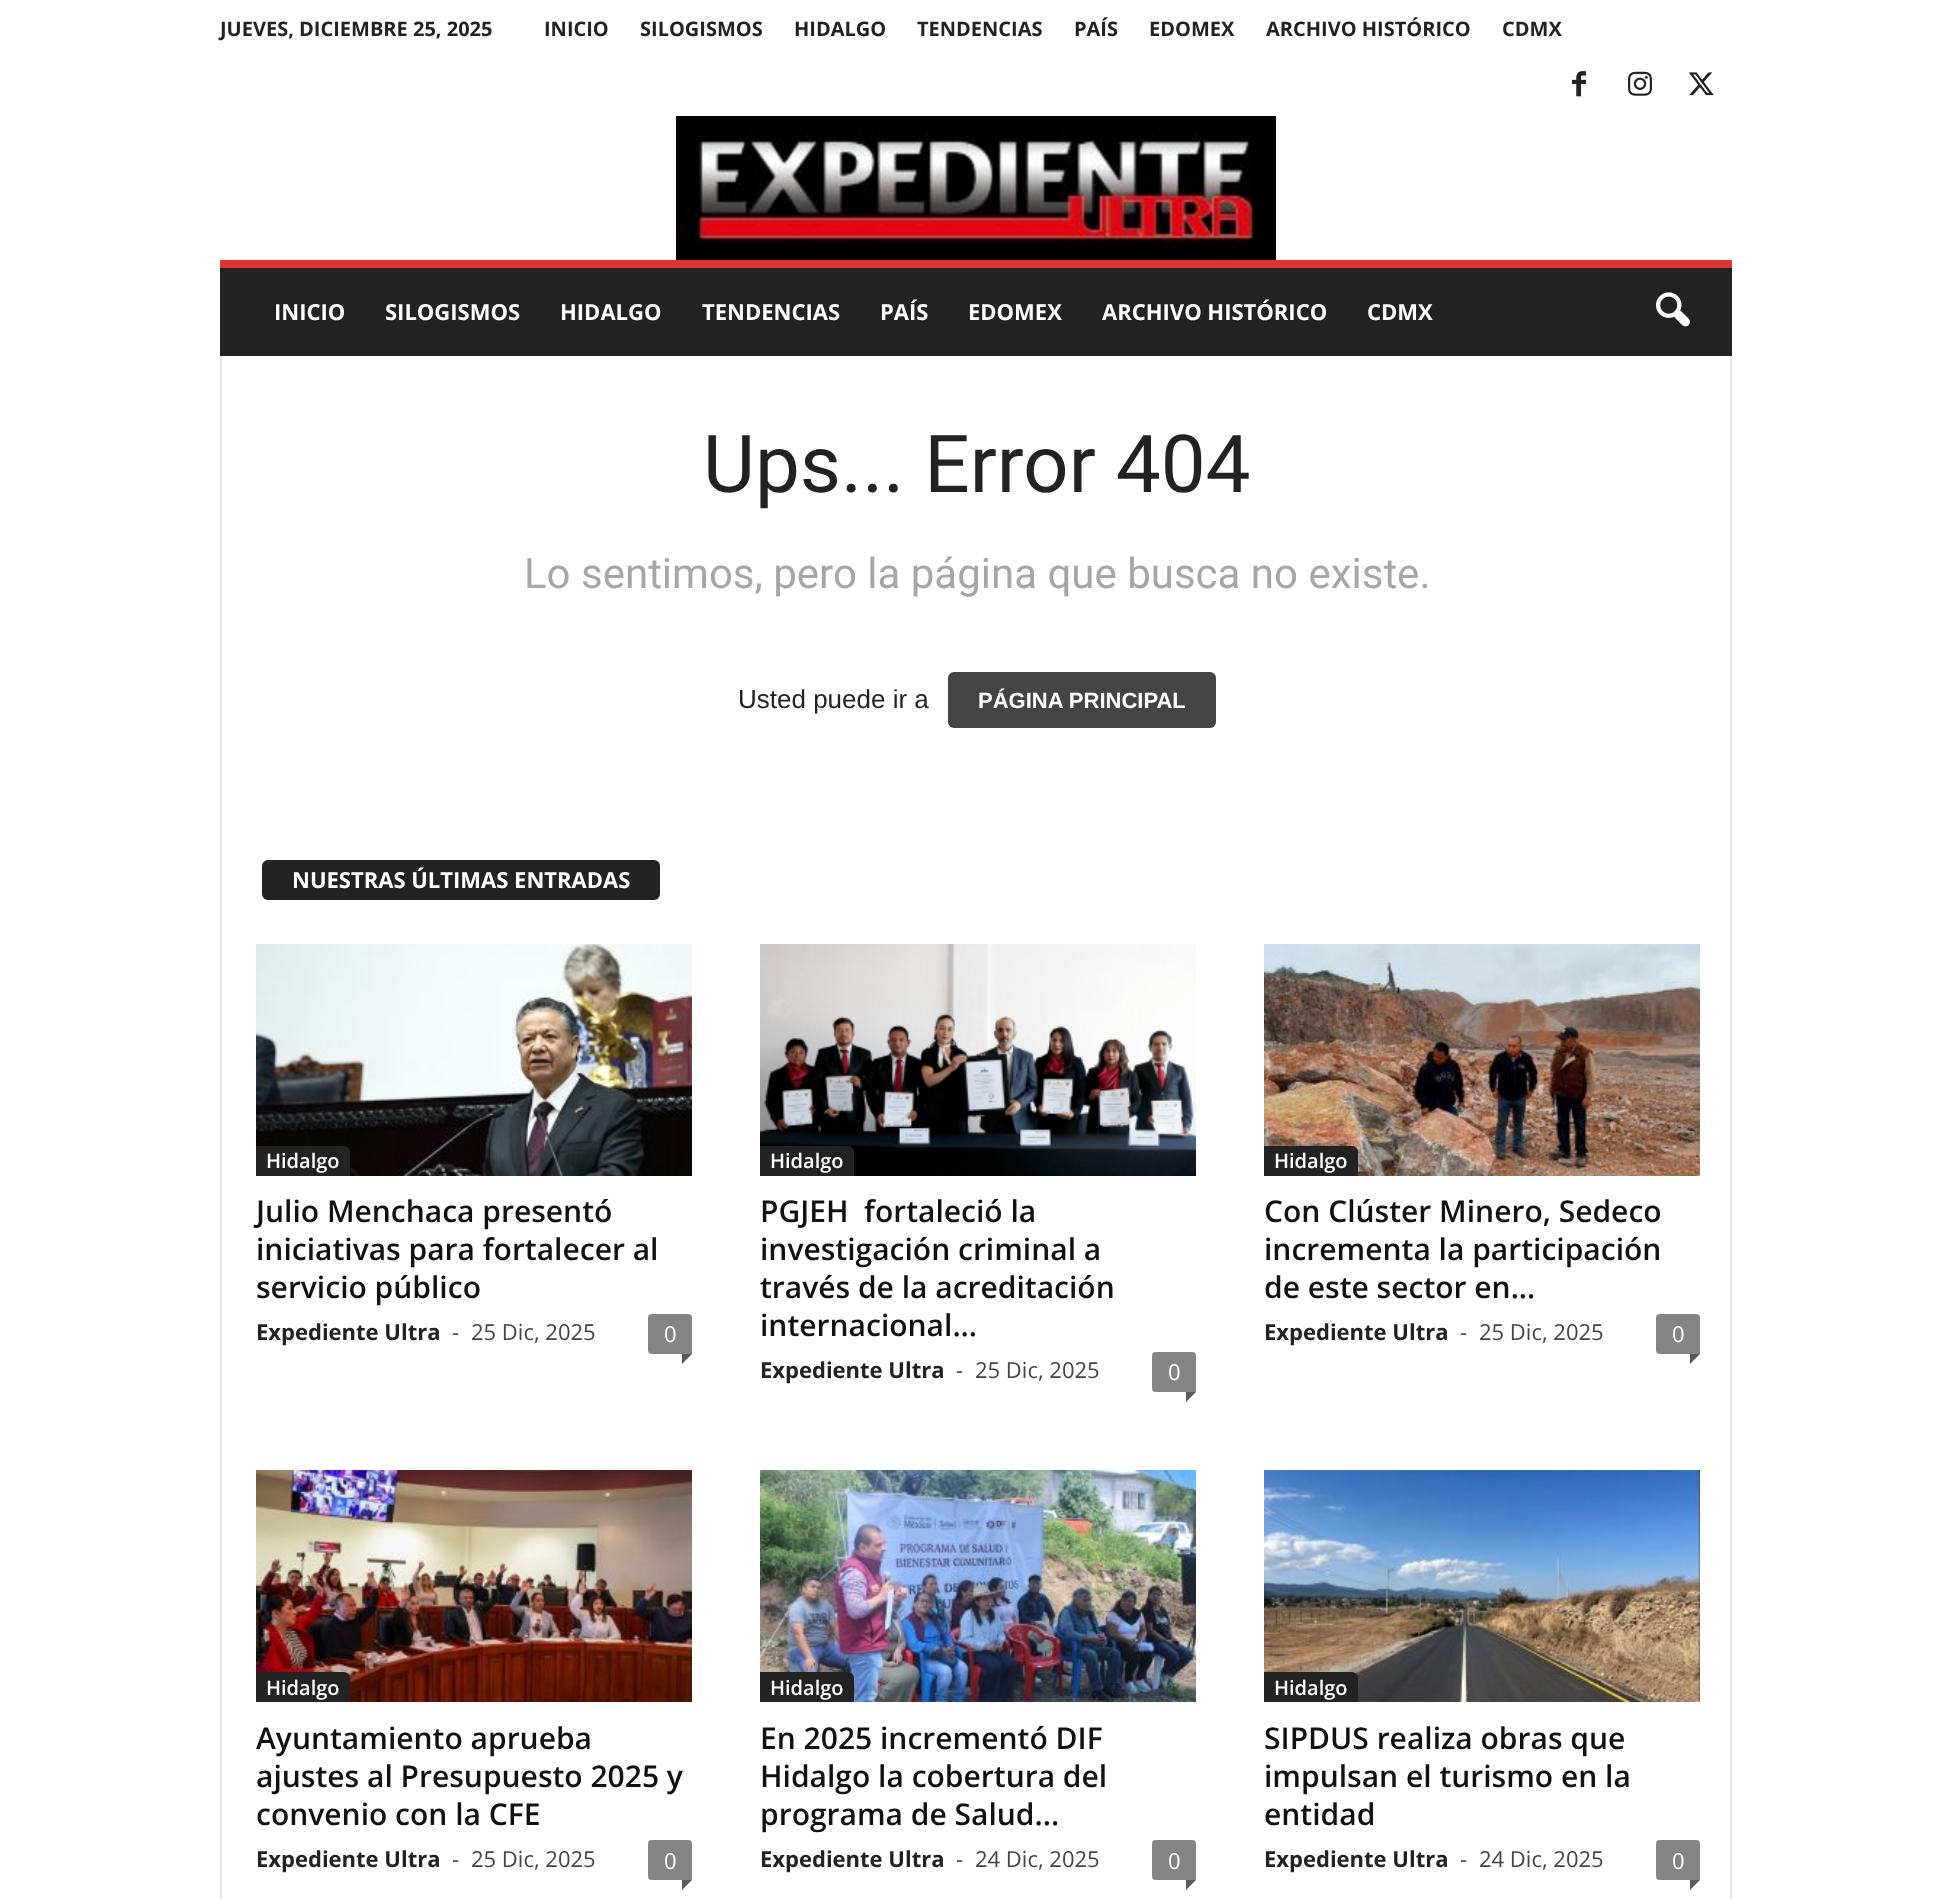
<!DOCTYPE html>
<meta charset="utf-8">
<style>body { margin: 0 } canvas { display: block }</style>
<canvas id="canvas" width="1952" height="1899"></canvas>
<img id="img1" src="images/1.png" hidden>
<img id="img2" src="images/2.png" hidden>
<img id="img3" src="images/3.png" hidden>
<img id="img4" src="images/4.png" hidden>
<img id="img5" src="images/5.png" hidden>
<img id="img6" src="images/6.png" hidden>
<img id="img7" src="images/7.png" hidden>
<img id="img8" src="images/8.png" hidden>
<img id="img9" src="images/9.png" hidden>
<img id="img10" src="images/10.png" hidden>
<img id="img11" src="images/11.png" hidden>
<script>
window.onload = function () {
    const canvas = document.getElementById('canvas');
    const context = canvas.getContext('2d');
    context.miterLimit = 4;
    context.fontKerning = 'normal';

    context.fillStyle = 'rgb(255, 255, 255)';
    context.fillRect(0, 0, 1952, 1899);
    context.drawImage(document.getElementById('img1'), 1572, 71, 14, 26);
    context.drawImage(document.getElementById('img2'), 1628, 71, 24, 25);
    context.drawImage(document.getElementById('img3'), 1688, 72, 26, 24);
    context.drawImage(document.getElementById('img4'), 676, 116, 600, 144);
    context.fillStyle = 'rgb(34, 34, 34)';
    context.fillRect(220, 268, 1512, 88);
    context.fillStyle = 'rgb(221, 51, 51)';
    context.fillRect(220, 260, 1512, 8);
    context.drawImage(document.getElementById('img5'), 1656, 292, 34, 35);
    context.fillStyle = 'rgb(230, 230, 230)';
    context.fillRect(220, 356, 2, 1543);
    context.fillStyle = 'rgb(68, 68, 68)';
    context.beginPath();
    context.roundRect(948, 672, 268, 56, 6);
    context.fill();
    context.fillStyle = 'rgb(34, 34, 34)';
    context.beginPath();
    context.roundRect(262, 860, 398, 40, 6);
    context.fill();
    context.drawImage(document.getElementById('img6'), 256, 944, 436, 232);
    context.beginPath();
    context.roundRect(256, 1146, 94, 30, [0, 6, 0, 0]);
    context.fill();
    context.fillStyle = 'rgb(132, 132, 132)';
    context.beginPath();
    context.roundRect(648, 1314, 44, 40, [4, 4, 0, 4]);
    context.fill();
    context.fillStyle = 'rgb(91, 91, 91)';
    context.beginPath();
    context.moveTo(682, 1354);
    context.lineTo(692, 1354);
    context.lineTo(682, 1364);
    context.closePath();
    context.fill();
    context.drawImage(document.getElementById('img7'), 760, 944, 436, 232);
    context.fillStyle = 'rgb(34, 34, 34)';
    context.beginPath();
    context.roundRect(760, 1146, 94, 30, [0, 6, 0, 0]);
    context.fill();
    context.fillStyle = 'rgb(132, 132, 132)';
    context.beginPath();
    context.roundRect(1152, 1352, 44, 40, [4, 4, 0, 4]);
    context.fill();
    context.fillStyle = 'rgb(91, 91, 91)';
    context.beginPath();
    context.moveTo(1186, 1392);
    context.lineTo(1196, 1392);
    context.lineTo(1186, 1402);
    context.closePath();
    context.fill();
    context.drawImage(document.getElementById('img8'), 1264, 944, 436, 232);
    context.fillStyle = 'rgb(34, 34, 34)';
    context.beginPath();
    context.roundRect(1264, 1146, 94, 30, [0, 6, 0, 0]);
    context.fill();
    context.fillStyle = 'rgb(132, 132, 132)';
    context.beginPath();
    context.roundRect(1656, 1314, 44, 40, [4, 4, 0, 4]);
    context.fill();
    context.fillStyle = 'rgb(91, 91, 91)';
    context.beginPath();
    context.moveTo(1690, 1354);
    context.lineTo(1700, 1354);
    context.lineTo(1690, 1364);
    context.closePath();
    context.fill();
    context.drawImage(document.getElementById('img9'), 256, 1470, 436, 232);
    context.fillStyle = 'rgb(34, 34, 34)';
    context.beginPath();
    context.roundRect(256, 1672, 94, 30, [0, 6, 0, 0]);
    context.fill();
    context.fillStyle = 'rgb(132, 132, 132)';
    context.beginPath();
    context.roundRect(648, 1840, 44, 40, [4, 4, 0, 4]);
    context.fill();
    context.fillStyle = 'rgb(91, 91, 91)';
    context.beginPath();
    context.moveTo(682, 1880);
    context.lineTo(692, 1880);
    context.lineTo(682, 1890);
    context.closePath();
    context.fill();
    context.drawImage(document.getElementById('img10'), 760, 1470, 436, 232);
    context.fillStyle = 'rgb(34, 34, 34)';
    context.beginPath();
    context.roundRect(760, 1672, 94, 30, [0, 6, 0, 0]);
    context.fill();
    context.fillStyle = 'rgb(132, 132, 132)';
    context.beginPath();
    context.roundRect(1152, 1840, 44, 40, [4, 4, 0, 4]);
    context.fill();
    context.fillStyle = 'rgb(91, 91, 91)';
    context.beginPath();
    context.moveTo(1186, 1880);
    context.lineTo(1196, 1880);
    context.lineTo(1186, 1890);
    context.closePath();
    context.fill();
    context.drawImage(document.getElementById('img11'), 1264, 1470, 436, 232);
    context.fillStyle = 'rgb(34, 34, 34)';
    context.beginPath();
    context.roundRect(1264, 1672, 94, 30, [0, 6, 0, 0]);
    context.fill();
    context.fillStyle = 'rgb(132, 132, 132)';
    context.beginPath();
    context.roundRect(1656, 1840, 44, 40, [4, 4, 0, 4]);
    context.fill();
    context.fillStyle = 'rgb(91, 91, 91)';
    context.beginPath();
    context.moveTo(1690, 1880);
    context.lineTo(1700, 1880);
    context.lineTo(1690, 1890);
    context.closePath();
    context.fill();
    context.fillStyle = 'rgb(230, 230, 230)';
    context.fillRect(1730, 356, 2, 1543);
    context.font = 'bold 20px Open Sans';
    context.fillStyle = 'rgb(34, 34, 34)';
    context.fillText('JUEVES, DICIEMBRE 25, 2025', 220, 36);
    context.fillText('INICIO', 544, 36);
    context.fillText('SILOGISMOS', 640, 36);
    context.fillText('HIDALGO', 794, 36);
    context.fillText('TENDENCIAS', 917, 36);
    context.fillText('PAÍS', 1074, 36);
    context.fillText('EDOMEX', 1149, 36);
    context.fillText('ARCHIVO HISTÓRICO', 1266, 36);
    context.fillText('CDMX', 1502, 36);
    context.font = 'bold 22px Open Sans';
    context.fillStyle = 'rgb(255, 255, 255)';
    context.fillText('INICIO', 274, 320);
    context.fillText('SILOGISMOS', 385, 320);
    context.fillText('HIDALGO', 560, 320);
    context.fillText('TENDENCIAS', 702, 320);
    context.fillText('PAÍS', 880, 320);
    context.fillText('EDOMEX', 968, 320);
    context.fillText('ARCHIVO HISTÓRICO', 1102, 320);
    context.fillText('CDMX', 1367, 320);
    context.font = '80px Roboto';
    context.fillStyle = 'rgb(34, 34, 34)';
    context.fillText('Ups... Error 404', 703, 492);
    context.font = '42px Roboto';
    context.fillStyle = 'rgb(166, 166, 166)';
    context.fillText('Lo sentimos, pero la página que busca no existe.', 524, 588);
    context.font = '26px Liberation Sans';
    context.fillStyle = 'rgb(34, 34, 34)';
    context.fillText('Usted puede ir a', 738, 708);
    context.font = 'bold 22px Liberation Sans';
    context.fillStyle = 'rgb(255, 255, 255)';
    context.fillText('PÁGINA PRINCIPAL', 978, 708);
    context.font = 'bold 22px Open Sans';
    context.fillText('NUESTRAS ÚLTIMAS ENTRADAS', 292, 888);
    context.font = '600 20px Open Sans';
    context.fillText('Hidalgo', 266, 1168);
    context.font = '600 30px Open Sans';
    context.fillStyle = 'rgb(17, 17, 17)';
    context.fillText('Julio Menchaca presentó', 256, 1222);
    context.fillText('iniciativas para fortalecer al', 256, 1260);
    context.fillText('servicio público', 256, 1298);
    context.font = 'bold 22px Open Sans';
    context.fillStyle = 'rgb(34, 34, 34)';
    context.fillText('Expediente Ultra', 256, 1340);
    context.font = '22px Open Sans';
    context.fillStyle = 'rgb(68, 68, 68)';
    context.fillText('-', 452, 1340);
    context.fillText('25 Dic, 2025', 471, 1340);
    context.fillStyle = 'rgb(255, 255, 255)';
    context.fillText('0', 664, 1342);
    context.font = '600 20px Open Sans';
    context.fillText('Hidalgo', 770, 1168);
    context.font = '600 30px Open Sans';
    context.fillStyle = 'rgb(17, 17, 17)';
    context.fillText('PGJEH  fortaleció la', 760, 1222);
    context.fillText('investigación criminal a', 760, 1260);
    context.fillText('través de la acreditación', 760, 1298);
    context.fillText('internacional...', 760, 1336);
    context.font = 'bold 22px Open Sans';
    context.fillStyle = 'rgb(34, 34, 34)';
    context.fillText('Expediente Ultra', 760, 1378);
    context.font = '22px Open Sans';
    context.fillStyle = 'rgb(68, 68, 68)';
    context.fillText('-', 956, 1378);
    context.fillText('25 Dic, 2025', 975, 1378);
    context.fillStyle = 'rgb(255, 255, 255)';
    context.fillText('0', 1168, 1380);
    context.font = '600 20px Open Sans';
    context.fillText('Hidalgo', 1274, 1168);
    context.font = '600 30px Open Sans';
    context.fillStyle = 'rgb(17, 17, 17)';
    context.fillText('Con Clúster Minero, Sedeco', 1264, 1222);
    context.fillText('incrementa la participación', 1264, 1260);
    context.fillText('de este sector en...', 1264, 1298);
    context.font = 'bold 22px Open Sans';
    context.fillStyle = 'rgb(34, 34, 34)';
    context.fillText('Expediente Ultra', 1264, 1340);
    context.font = '22px Open Sans';
    context.fillStyle = 'rgb(68, 68, 68)';
    context.fillText('-', 1460, 1340);
    context.fillText('25 Dic, 2025', 1479, 1340);
    context.fillStyle = 'rgb(255, 255, 255)';
    context.fillText('0', 1672, 1342);
    context.font = '600 20px Open Sans';
    context.fillText('Hidalgo', 266, 1695);
    context.font = '600 30px Open Sans';
    context.fillStyle = 'rgb(17, 17, 17)';
    context.fillText('Ayuntamiento aprueba', 256, 1749);
    context.fillText('ajustes al Presupuesto 2025 y', 256, 1787);
    context.fillText('convenio con la CFE', 256, 1825);
    context.font = 'bold 22px Open Sans';
    context.fillStyle = 'rgb(34, 34, 34)';
    context.fillText('Expediente Ultra', 256, 1867);
    context.font = '22px Open Sans';
    context.fillStyle = 'rgb(68, 68, 68)';
    context.fillText('-', 452, 1867);
    context.fillText('25 Dic, 2025', 471, 1867);
    context.fillStyle = 'rgb(255, 255, 255)';
    context.fillText('0', 664, 1869);
    context.font = '600 20px Open Sans';
    context.fillText('Hidalgo', 770, 1695);
    context.font = '600 30px Open Sans';
    context.fillStyle = 'rgb(17, 17, 17)';
    context.fillText('En 2025 incrementó DIF', 760, 1749);
    context.fillText('Hidalgo la cobertura del', 760, 1787);
    context.fillText('programa de Salud...', 760, 1825);
    context.font = 'bold 22px Open Sans';
    context.fillStyle = 'rgb(34, 34, 34)';
    context.fillText('Expediente Ultra', 760, 1867);
    context.font = '22px Open Sans';
    context.fillStyle = 'rgb(68, 68, 68)';
    context.fillText('-', 956, 1867);
    context.fillText('24 Dic, 2025', 975, 1867);
    context.fillStyle = 'rgb(255, 255, 255)';
    context.fillText('0', 1168, 1869);
    context.font = '600 20px Open Sans';
    context.fillText('Hidalgo', 1274, 1695);
    context.font = '600 30px Open Sans';
    context.fillStyle = 'rgb(17, 17, 17)';
    context.fillText('SIPDUS realiza obras que', 1264, 1749);
    context.fillText('impulsan el turismo en la', 1264, 1787);
    context.fillText('entidad', 1264, 1825);
    context.font = 'bold 22px Open Sans';
    context.fillStyle = 'rgb(34, 34, 34)';
    context.fillText('Expediente Ultra', 1264, 1867);
    context.font = '22px Open Sans';
    context.fillStyle = 'rgb(68, 68, 68)';
    context.fillText('-', 1460, 1867);
    context.fillText('24 Dic, 2025', 1479, 1867);
    context.fillStyle = 'rgb(255, 255, 255)';
    context.fillText('0', 1672, 1869);
};
</script>
